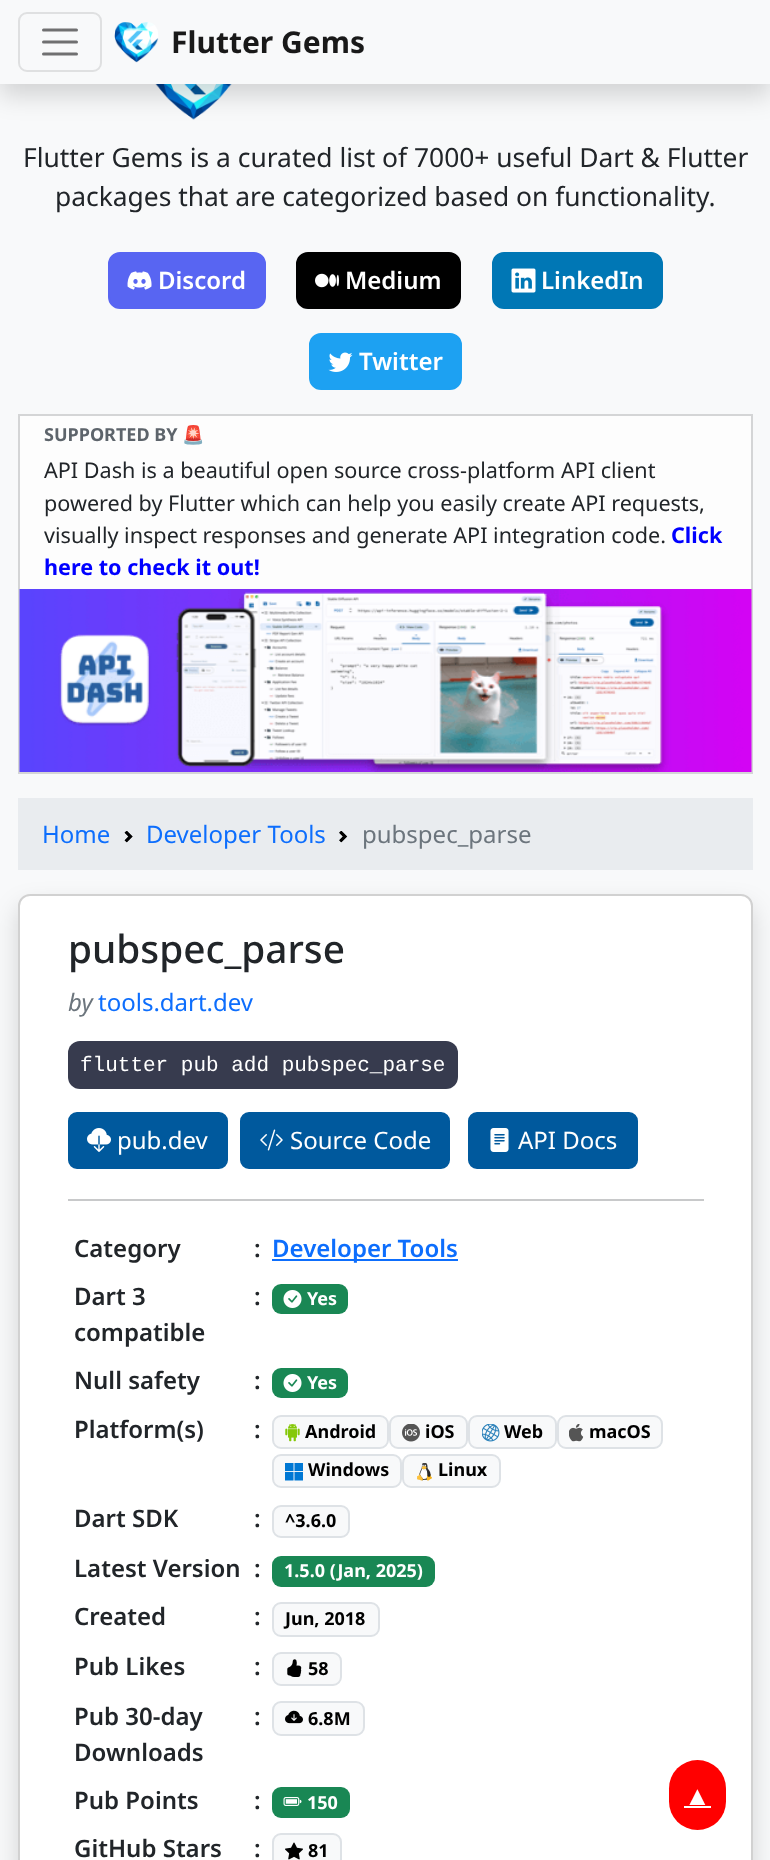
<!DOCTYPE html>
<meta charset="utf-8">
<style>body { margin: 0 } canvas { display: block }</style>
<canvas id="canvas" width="770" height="1860"></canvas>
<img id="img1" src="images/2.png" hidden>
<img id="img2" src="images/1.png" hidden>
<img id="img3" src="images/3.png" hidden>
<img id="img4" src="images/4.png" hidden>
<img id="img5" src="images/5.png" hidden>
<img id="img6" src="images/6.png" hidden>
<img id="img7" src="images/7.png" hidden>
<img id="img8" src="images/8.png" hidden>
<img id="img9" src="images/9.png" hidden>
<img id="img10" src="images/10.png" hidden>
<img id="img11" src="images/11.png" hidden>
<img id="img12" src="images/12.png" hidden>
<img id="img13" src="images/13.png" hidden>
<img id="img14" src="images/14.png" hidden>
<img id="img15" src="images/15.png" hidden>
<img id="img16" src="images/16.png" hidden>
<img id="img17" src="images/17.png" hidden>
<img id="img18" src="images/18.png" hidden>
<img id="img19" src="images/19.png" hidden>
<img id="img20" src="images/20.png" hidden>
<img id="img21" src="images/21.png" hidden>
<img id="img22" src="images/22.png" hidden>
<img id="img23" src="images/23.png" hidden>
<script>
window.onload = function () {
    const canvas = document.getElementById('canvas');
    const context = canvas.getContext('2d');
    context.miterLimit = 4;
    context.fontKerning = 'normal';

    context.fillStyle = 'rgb(248, 249, 250)';
    context.fillRect(0, 0, 770, 1860);
    context.drawImage(document.getElementById('img1'), 155, 84, 77, 36);
    context.fillStyle = 'rgba(0, 0, 0, 0.15)';
    context.filter = 'blur(12px)';
    context.beginPath();
    context.rect(0, 12, 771, 84);
    context.fill();
    context.filter = 'none';
    context.fillStyle = 'rgb(248, 249, 250)';
    context.fillRect(0, 0, 770, 84);
    context.beginPath();
    context.roundRect(19, 13, 82, 58, 8);
    context.strokeStyle = 'rgb(223, 224, 225)';
    context.lineWidth = 2;
    context.stroke();
    context.beginPath();
    context.moveTo(43.5, 30);
    context.lineTo(76.5, 30);
    context.moveTo(43.5, 42);
    context.lineTo(76.5, 42);
    context.moveTo(43.5, 54);
    context.lineTo(76.5, 54);
    context.strokeStyle = 'rgb(112, 112, 113)';
    context.lineWidth = 3;
    context.lineCap = 'round';
    context.stroke();
    context.drawImage(document.getElementById('img2'), 114, 22, 45, 41);
    context.fillStyle = 'rgb(88, 101, 242)';
    context.beginPath();
    context.roundRect(109, 253, 156, 55, 11);
    context.fill();
    context.strokeStyle = 'rgb(88, 101, 242)';
    context.lineWidth = 2;
    context.stroke();
    context.drawImage(document.getElementById('img3'), 127, 271, 25, 19);
    context.fillStyle = 'rgb(0, 0, 0)';
    context.beginPath();
    context.roundRect(297, 253, 163, 55, 11);
    context.fill();
    context.strokeStyle = 'rgb(0, 0, 0)';
    context.stroke();
    context.drawImage(document.getElementById('img4'), 315, 273, 24, 15);
    context.fillStyle = 'rgb(0, 119, 181)';
    context.beginPath();
    context.roundRect(493, 253, 169, 55, 11);
    context.fill();
    context.strokeStyle = 'rgb(0, 119, 181)';
    context.stroke();
    context.drawImage(document.getElementById('img5'), 511, 268, 25, 25);
    context.fillStyle = 'rgb(29, 161, 242)';
    context.beginPath();
    context.roundRect(310, 334, 151, 55, 11);
    context.fill();
    context.strokeStyle = 'rgb(29, 161, 242)';
    context.stroke();
    context.drawImage(document.getElementById('img6'), 328, 352, 25, 20);
    context.fillStyle = 'rgb(253, 253, 253)';
    context.fillRect(20, 416, 731, 173);
    context.strokeStyle = 'rgb(212, 213, 214)';
    context.strokeRect(19, 415, 733, 358);
    context.drawImage(document.getElementById('img7'), 19, 589, 733, 183);
    context.fillStyle = 'rgb(233, 236, 239)';
    context.fillRect(18, 798, 735, 72);
    context.drawImage(document.getElementById('img8'), 124, 831, 9, 12);
    context.drawImage(document.getElementById('img9'), 339, 831, 9, 12);
    context.fillStyle = 'rgba(0, 0, 0, 0.15)';
    context.filter = 'blur(12px)';
    context.beginPath();
    context.roundRect(18, 906, 735, 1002, 12);
    context.fill();
    context.filter = 'none';
    context.fillStyle = 'rgb(255, 255, 255)';
    context.beginPath();
    context.roundRect(18, 894, 735, 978, 12);
    context.fill();
    context.beginPath();
    context.roundRect(19, 895, 733, 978, 11);
    context.strokeStyle = 'rgba(0, 0, 0, 0.18)';
    context.stroke();
    context.fillStyle = 'rgb(55, 59, 78)';
    context.beginPath();
    context.roundRect(68, 1041, 390, 48, 12);
    context.fill();
    context.fillStyle = 'rgb(0, 89, 157)';
    context.beginPath();
    context.roundRect(69, 1113, 158, 55, 8);
    context.fill();
    context.strokeStyle = 'rgb(0, 89, 157)';
    context.stroke();
    context.drawImage(document.getElementById('img10'), 87, 1128, 24, 24);
    context.beginPath();
    context.roundRect(241, 1113, 208, 55, 8);
    context.fill();
    context.stroke();
    context.drawImage(document.getElementById('img11'), 260, 1129, 23, 22);
    context.beginPath();
    context.roundRect(469, 1113, 168, 55, 8);
    context.fill();
    context.stroke();
    context.drawImage(document.getElementById('img12'), 490, 1128, 19, 24);
    context.fillStyle = 'rgb(200, 201, 202)';
    context.fillRect(68, 1199, 636, 2);
    context.fillStyle = 'rgb(13, 110, 253)';
    context.fillRect(272, 1259, 186, 2);
    context.fillStyle = 'rgb(25, 135, 84)';
    context.beginPath();
    context.roundRect(272, 1284, 76, 30, 9);
    context.fill();
    context.drawImage(document.getElementById('img13'), 283, 1290, 19, 18);
    context.beginPath();
    context.roundRect(272, 1368, 76, 30, 9);
    context.fill();
    context.drawImage(document.getElementById('img13'), 283, 1374, 19, 18);
    context.fillStyle = 'rgb(248, 249, 250)';
    context.beginPath();
    context.roundRect(273, 1416, 115, 32, 8);
    context.fill();
    context.strokeStyle = 'rgb(222, 226, 230)';
    context.stroke();
    context.drawImage(document.getElementById('img14'), 285, 1424, 15, 18);
    context.beginPath();
    context.roundRect(390, 1416, 77, 32, 8);
    context.fill();
    context.stroke();
    context.drawImage(document.getElementById('img15'), 402, 1424, 18, 18);
    context.beginPath();
    context.roundRect(469, 1416, 87, 32, 8);
    context.fill();
    context.stroke();
    context.drawImage(document.getElementById('img16'), 482, 1424, 18, 18);
    context.beginPath();
    context.roundRect(558, 1416, 104, 32, 8);
    context.fill();
    context.stroke();
    context.drawImage(document.getElementById('img17'), 569, 1424, 15, 18);
    context.beginPath();
    context.roundRect(273, 1455, 128, 32, 8);
    context.fill();
    context.stroke();
    context.drawImage(document.getElementById('img18'), 285, 1463, 18, 18);
    context.beginPath();
    context.roundRect(403, 1455, 97, 32, 8);
    context.fill();
    context.stroke();
    context.drawImage(document.getElementById('img19'), 417, 1463, 15, 18);
    context.beginPath();
    context.roundRect(273, 1506, 76, 31, 8);
    context.fill();
    context.stroke();
    context.fillStyle = 'rgb(25, 135, 84)';
    context.beginPath();
    context.roundRect(272, 1556, 163, 31, 9);
    context.fill();
    context.fillStyle = 'rgb(248, 249, 250)';
    context.beginPath();
    context.roundRect(273, 1603, 106, 33, 8);
    context.fill();
    context.stroke();
    context.beginPath();
    context.roundRect(273, 1653, 68, 32, 8);
    context.fill();
    context.stroke();
    context.drawImage(document.getElementById('img20'), 287, 1659, 15, 18);
    context.beginPath();
    context.roundRect(273, 1702, 91, 33, 8);
    context.fill();
    context.stroke();
    context.drawImage(document.getElementById('img21'), 285, 1710, 18, 14);
    context.fillStyle = 'rgb(25, 135, 84)';
    context.beginPath();
    context.roundRect(272, 1787, 78, 31, 9);
    context.fill();
    context.drawImage(document.getElementById('img22'), 283, 1797, 19, 9);
    context.fillStyle = 'rgb(248, 249, 250)';
    context.beginPath();
    context.roundRect(273, 1834, 68, 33, 8);
    context.fill();
    context.stroke();
    context.drawImage(document.getElementById('img23'), 285, 1842, 18, 18);
    context.fillStyle = 'rgb(255, 0, 0)';
    context.beginPath();
    context.roundRect(669, 1760, 57, 70, 28.5);
    context.fill();
    context.fillStyle = 'rgb(255, 255, 255)';
    context.fillRect(684, 1806, 27, 2);
    context.font = 'bold 30px Noto Sans';
    context.fillStyle = 'rgb(25, 25, 25)';
    context.fillText('Flutter Gems', 171, 53);
    context.font = '26.4px Noto Sans';
    context.fillStyle = 'rgb(33, 37, 41)';
    context.fillText('Flutter Gems is a curated list of 7000+ useful Dart & Flutter', 23, 167);
    context.fillText('packages that are categorized based on functionality.', 55, 206);
    context.font = '600 24px Noto Sans';
    context.fillStyle = 'rgb(255, 255, 255)';
    context.fillText('Discord', 158, 289);
    context.fillText('Medium', 345, 289);
    context.fillText('LinkedIn', 541, 289);
    context.fillText('Twitter', 359, 370);
    context.font = 'bold 18px Noto Sans';
    context.fillStyle = 'rgb(93, 100, 107)';
    context.fillText('SUPPORTED BY', 44, 441);
    context.font = 'bold 18px Noto Color Emoji';
    context.fillText('🚨', 182, 441);
    context.font = '21.6px Noto Sans';
    context.fillStyle = 'rgb(33, 37, 41)';
    context.fillText('API Dash is a beautiful open source cross-platform API client', 44, 478);
    context.fillText('powered by Flutter which can help you easily create API requests,', 44, 511);
    context.fillText('visually inspect responses and generate API integration code.', 44, 543);
    context.font = 'bold 21.6px Noto Sans';
    context.fillStyle = 'rgb(0, 0, 255)';
    context.fillText('Click', 671, 543);
    context.fillText('here to check it out!', 44, 575);
    context.font = '24px Noto Sans';
    context.fillStyle = 'rgb(13, 110, 253)';
    context.fillText('Home', 42, 843);
    context.fillText('Developer Tools', 146, 843);
    context.fillStyle = 'rgb(108, 117, 125)';
    context.fillText('pubspec_parse', 362, 843);
    context.font = '500 38.75px Noto Sans';
    context.fillStyle = 'rgb(33, 37, 41)';
    context.fillText('pubspec_parse', 68, 963);
    context.font = 'italic 24px Noto Sans';
    context.fillStyle = 'rgb(108, 117, 125)';
    context.fillText('by', 68, 1011);
    context.font = '24px Noto Sans';
    context.fillStyle = 'rgb(13, 110, 253)';
    context.fillText('tools.dart.dev', 98, 1011);
    context.font = '21px Liberation Mono';
    context.fillStyle = 'rgb(255, 255, 255)';
    context.fillText('flutter pub add pubspec_parse', 80, 1071);
    context.font = '24px Noto Sans';
    context.fillText('pub.dev', 117, 1149);
    context.fillText('Source Code', 290, 1149);
    context.fillText('API Docs', 518, 1149);
    context.font = '600 24px Noto Sans';
    context.fillStyle = 'rgb(33, 37, 41)';
    context.fillText('Category', 74, 1257);
    context.fillText(':', 254, 1257);
    context.fillStyle = 'rgb(13, 110, 253)';
    context.fillText('Developer Tools', 272, 1257);
    context.fillStyle = 'rgb(33, 37, 41)';
    context.fillText('Dart 3', 74, 1305);
    context.fillText('compatible', 74, 1341);
    context.fillText(':', 254, 1305);
    context.font = 'bold 18px Noto Sans';
    context.fillStyle = 'rgb(255, 255, 255)';
    context.fillText('Yes', 307, 1305);
    context.font = '600 24px Noto Sans';
    context.fillStyle = 'rgb(33, 37, 41)';
    context.fillText('Null safety', 74, 1389);
    context.fillText(':', 254, 1389);
    context.font = 'bold 18px Noto Sans';
    context.fillStyle = 'rgb(255, 255, 255)';
    context.fillText('Yes', 307, 1389);
    context.font = '600 24px Noto Sans';
    context.fillStyle = 'rgb(33, 37, 41)';
    context.fillText('Platform(s)', 74, 1438);
    context.fillText(':', 254, 1438);
    context.font = 'bold 18px Noto Sans';
    context.fillStyle = 'rgb(0, 0, 0)';
    context.fillText('Android', 305, 1438);
    context.fillText('iOS', 425, 1438);
    context.fillText('Web', 504, 1438);
    context.fillText('macOS', 589, 1438);
    context.fillText('Windows', 308, 1476);
    context.fillText('Linux', 438, 1476);
    context.font = '600 24px Noto Sans';
    context.fillStyle = 'rgb(33, 37, 41)';
    context.fillText('Dart SDK', 74, 1527);
    context.fillText(':', 254, 1527);
    context.font = 'bold 18px Noto Sans';
    context.fillStyle = 'rgb(0, 0, 0)';
    context.fillText('^3.6.0', 285, 1527);
    context.font = '600 24px Noto Sans';
    context.fillStyle = 'rgb(33, 37, 41)';
    context.fillText('Latest Version', 74, 1577);
    context.fillText(':', 254, 1577);
    context.font = 'bold 18px Noto Sans';
    context.fillStyle = 'rgb(255, 255, 255)';
    context.fillText('1.5.0 (Jan, 2025)', 284, 1577);
    context.font = '600 24px Noto Sans';
    context.fillStyle = 'rgb(33, 37, 41)';
    context.fillText('Created', 74, 1625);
    context.fillText(':', 254, 1625);
    context.font = 'bold 18px Noto Sans';
    context.fillStyle = 'rgb(0, 0, 0)';
    context.fillText('Jun, 2018', 285, 1625);
    context.font = '600 24px Noto Sans';
    context.fillStyle = 'rgb(33, 37, 41)';
    context.fillText('Pub Likes', 74, 1675);
    context.fillText(':', 254, 1675);
    context.font = 'bold 18px Noto Sans';
    context.fillStyle = 'rgb(0, 0, 0)';
    context.fillText('58', 308, 1675);
    context.font = '600 24px Noto Sans';
    context.fillStyle = 'rgb(33, 37, 41)';
    context.fillText('Pub 30-day', 74, 1725);
    context.fillText('Downloads', 74, 1761);
    context.fillText(':', 254, 1725);
    context.font = 'bold 18px Noto Sans';
    context.fillStyle = 'rgb(0, 0, 0)';
    context.fillText('6.8M', 308, 1725);
    context.font = '600 24px Noto Sans';
    context.fillStyle = 'rgb(33, 37, 41)';
    context.fillText('Pub Points', 74, 1809);
    context.fillText(':', 254, 1809);
    context.font = 'bold 18px Noto Sans';
    context.fillStyle = 'rgb(255, 255, 255)';
    context.fillText('150', 307, 1809);
    context.font = '600 24px Noto Sans';
    context.fillStyle = 'rgb(33, 37, 41)';
    context.fillText('GitHub Stars', 74, 1857);
    context.fillText(':', 254, 1857);
    context.font = 'bold 18px Noto Sans';
    context.fillStyle = 'rgb(0, 0, 0)';
    context.fillText('81', 308, 1857);
    context.font = '27px Liberation Sans';
    context.fillStyle = 'rgb(255, 255, 255)';
    context.fillText('▲', 684, 1805);
};
</script>
